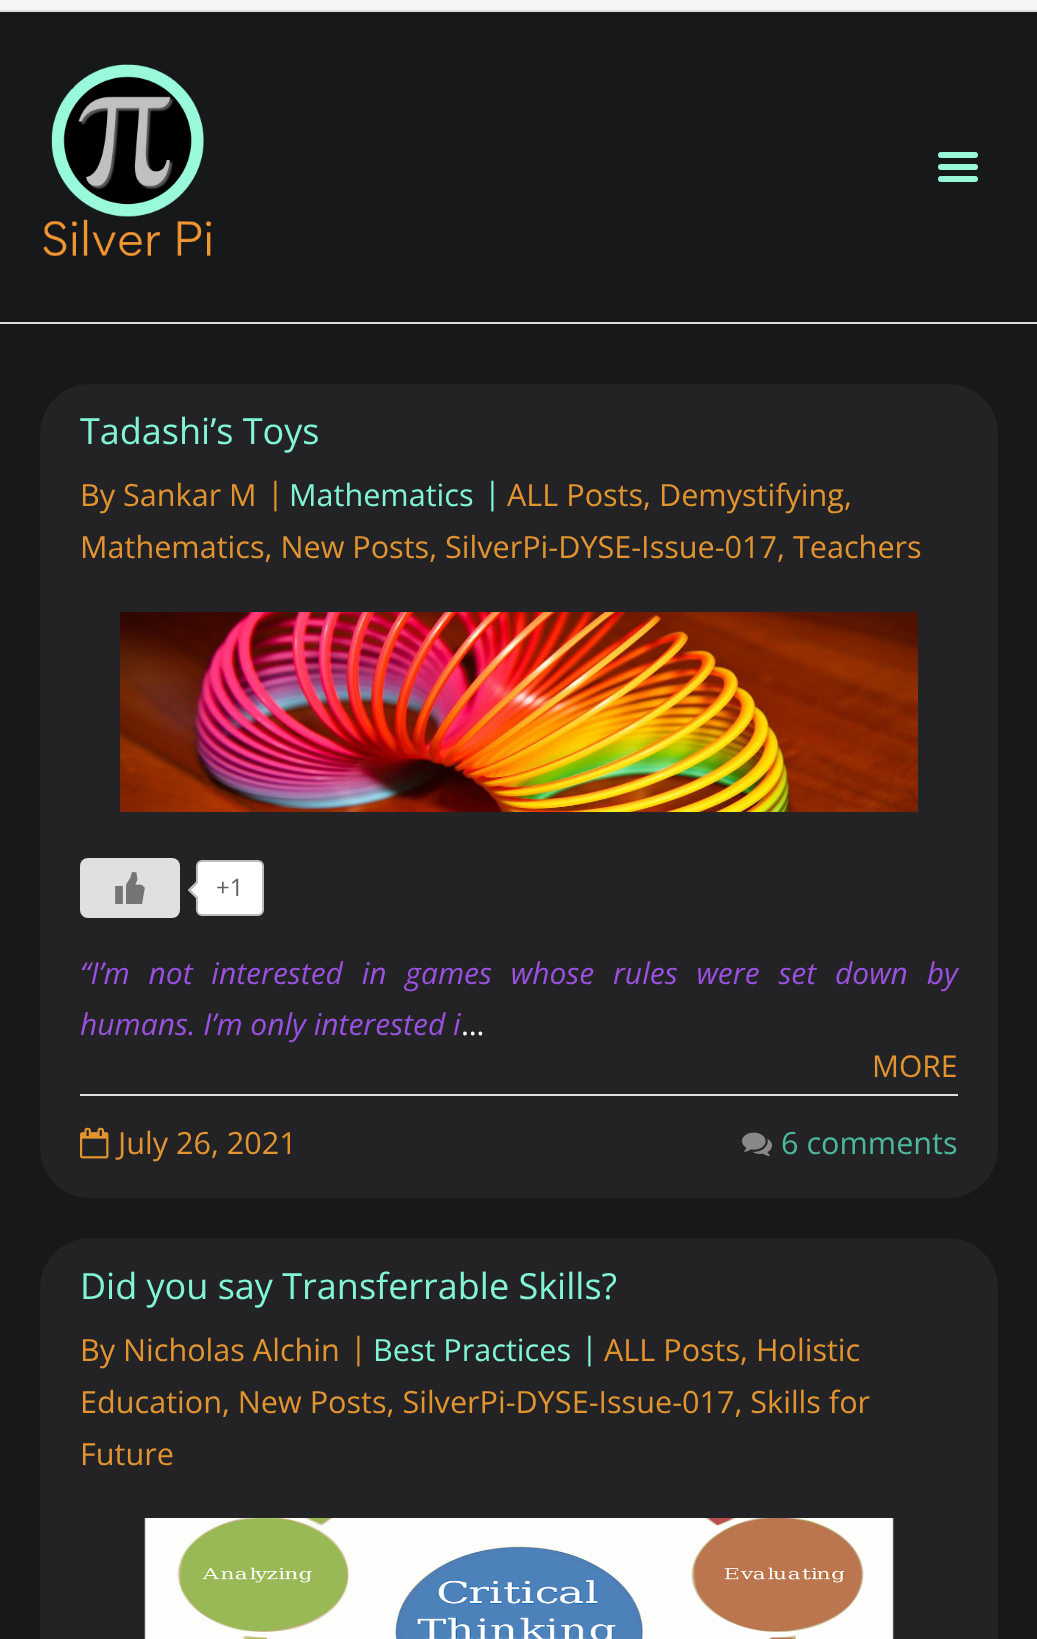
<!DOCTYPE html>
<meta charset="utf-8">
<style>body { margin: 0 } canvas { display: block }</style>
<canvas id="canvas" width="1037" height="1639"></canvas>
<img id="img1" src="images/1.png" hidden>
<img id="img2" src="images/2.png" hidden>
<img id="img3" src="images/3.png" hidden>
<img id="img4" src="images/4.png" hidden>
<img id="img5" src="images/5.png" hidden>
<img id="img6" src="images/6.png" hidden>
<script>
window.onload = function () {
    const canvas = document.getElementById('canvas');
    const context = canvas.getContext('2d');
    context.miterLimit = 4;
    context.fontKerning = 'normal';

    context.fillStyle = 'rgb(22, 24, 26)';
    context.fillRect(0, 0, 1037, 1639);
    context.fillStyle = 'rgb(221, 221, 221)';
    context.fillRect(0, 322, 1037, 2);
    context.fillStyle = 'rgb(245, 245, 245)';
    context.fillRect(0, 0, 1037, 10);
    context.fillStyle = 'rgb(221, 221, 221)';
    context.fillRect(0, 10, 1037, 2);
    context.drawImage(document.getElementById('img1'), 43, 64, 169, 192);
    context.fillStyle = 'rgb(152, 249, 218)';
    context.beginPath();
    context.roundRect(938, 152, 40, 6, 3);
    context.fill();
    context.beginPath();
    context.roundRect(938, 164, 40, 6, 3);
    context.fill();
    context.beginPath();
    context.roundRect(938, 176, 40, 6, 3);
    context.fill();
    context.fillStyle = 'rgb(35, 35, 37)';
    context.beginPath();
    context.roundRect(40, 384, 958, 814, 50);
    context.fill();
    context.drawImage(document.getElementById('img2'), 120, 612, 798, 200);
    context.fillStyle = 'rgb(224, 224, 224)';
    context.beginPath();
    context.roundRect(80, 858, 100, 60, 8);
    context.fill();
    context.drawImage(document.getElementById('img3'), 115, 872, 30, 32);
    context.fillStyle = 'rgb(255, 255, 255)';
    context.beginPath();
    context.roundRect(197, 861, 66, 54, 5);
    context.fill();
    context.strokeStyle = 'rgb(189, 189, 189)';
    context.lineWidth = 2;
    context.stroke();
    context.beginPath();
    context.moveTo(198, 880);
    context.lineTo(208, 890);
    context.lineTo(198, 900);
    context.lineTo(188, 890);
    context.closePath();
    context.fill();
    context.fillStyle = 'rgb(189, 189, 189)';
    context.beginPath();
    context.moveTo(198, 900);
    context.lineTo(188, 890);
    context.lineTo(191, 890);
    context.lineTo(198, 897);
    context.closePath();
    context.moveTo(188, 890);
    context.lineTo(198, 880);
    context.lineTo(198, 883);
    context.lineTo(191, 890);
    context.closePath();
    context.fill();
    context.fillStyle = 'rgb(221, 221, 221)';
    context.fillRect(80, 1094, 878, 2);
    context.drawImage(document.getElementById('img4'), 80, 1127, 29, 32);
    context.drawImage(document.getElementById('img5'), 742, 1132, 30, 25);
    context.fillStyle = 'rgb(35, 35, 37)';
    context.beginPath();
    context.roundRect(40, 1238, 958, 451, 50);
    context.fill();
    context.drawImage(document.getElementById('img6'), 144, 1518, 750, 121);
    context.font = '36px Open Sans';
    context.fillStyle = 'rgb(130, 246, 211)';
    context.fillText('Tadashi’s Toys', 80, 444);
    context.font = '30.6px Open Sans';
    context.fillStyle = 'rgb(226, 148, 48)';
    context.fillText('By Sankar M', 80, 506);
    context.fillText('|', 267, 504);
    context.fillStyle = 'rgb(130, 246, 211)';
    context.fillText('Mathematics', 289, 506);
    context.fillText('|', 484, 504);
    context.fillStyle = 'rgb(226, 148, 48)';
    context.fillText('ALL Posts, Demystifying,', 507, 506);
    context.fillText('Mathematics, New Posts, SilverPi-DYSE-Issue-017, Teachers', 80, 558);
    context.font = '24px Open Sans';
    context.fillStyle = 'rgb(97, 97, 97)';
    context.fillText('+1', 216, 896);
    context.wordSpacing = '11px';
    context.font = 'italic 30px Open Sans';
    context.fillStyle = 'rgb(155, 81, 224)';
    context.fillText('“I’m not interested in games whose rules were set down by', 80, 984);
    context.wordSpacing = '0px';
    context.fillText('humans. I’m only interested i', 80, 1035);
    context.font = '30px Open Sans';
    context.fillStyle = 'rgb(255, 255, 255)';
    context.fillText('…', 461, 1035);
    context.fillStyle = 'rgb(226, 148, 48)';
    context.fillText('MORE', 872, 1077);
    context.font = '30.6px Open Sans';
    context.fillText('July 26, 2021', 118, 1154);
    context.fillStyle = 'rgb(76, 185, 152)';
    context.fillText('6 comments', 781, 1154);
    context.font = '36px Open Sans';
    context.fillStyle = 'rgb(130, 246, 211)';
    context.fillText('Did you say Transferrable Skills?', 80, 1299);
    context.font = '30.6px Open Sans';
    context.fillStyle = 'rgb(226, 148, 48)';
    context.fillText('By Nicholas Alchin', 80, 1361);
    context.fillText('|', 350, 1359);
    context.fillStyle = 'rgb(130, 246, 211)';
    context.fillText('Best Practices', 373, 1361);
    context.fillText('|', 581, 1359);
    context.fillStyle = 'rgb(226, 148, 48)';
    context.fillText('ALL Posts, Holistic', 604, 1361);
    context.fillText('Education, New Posts, SilverPi-DYSE-Issue-017, Skills for', 80, 1413);
    context.fillText('Future', 80, 1465);
};
</script>
